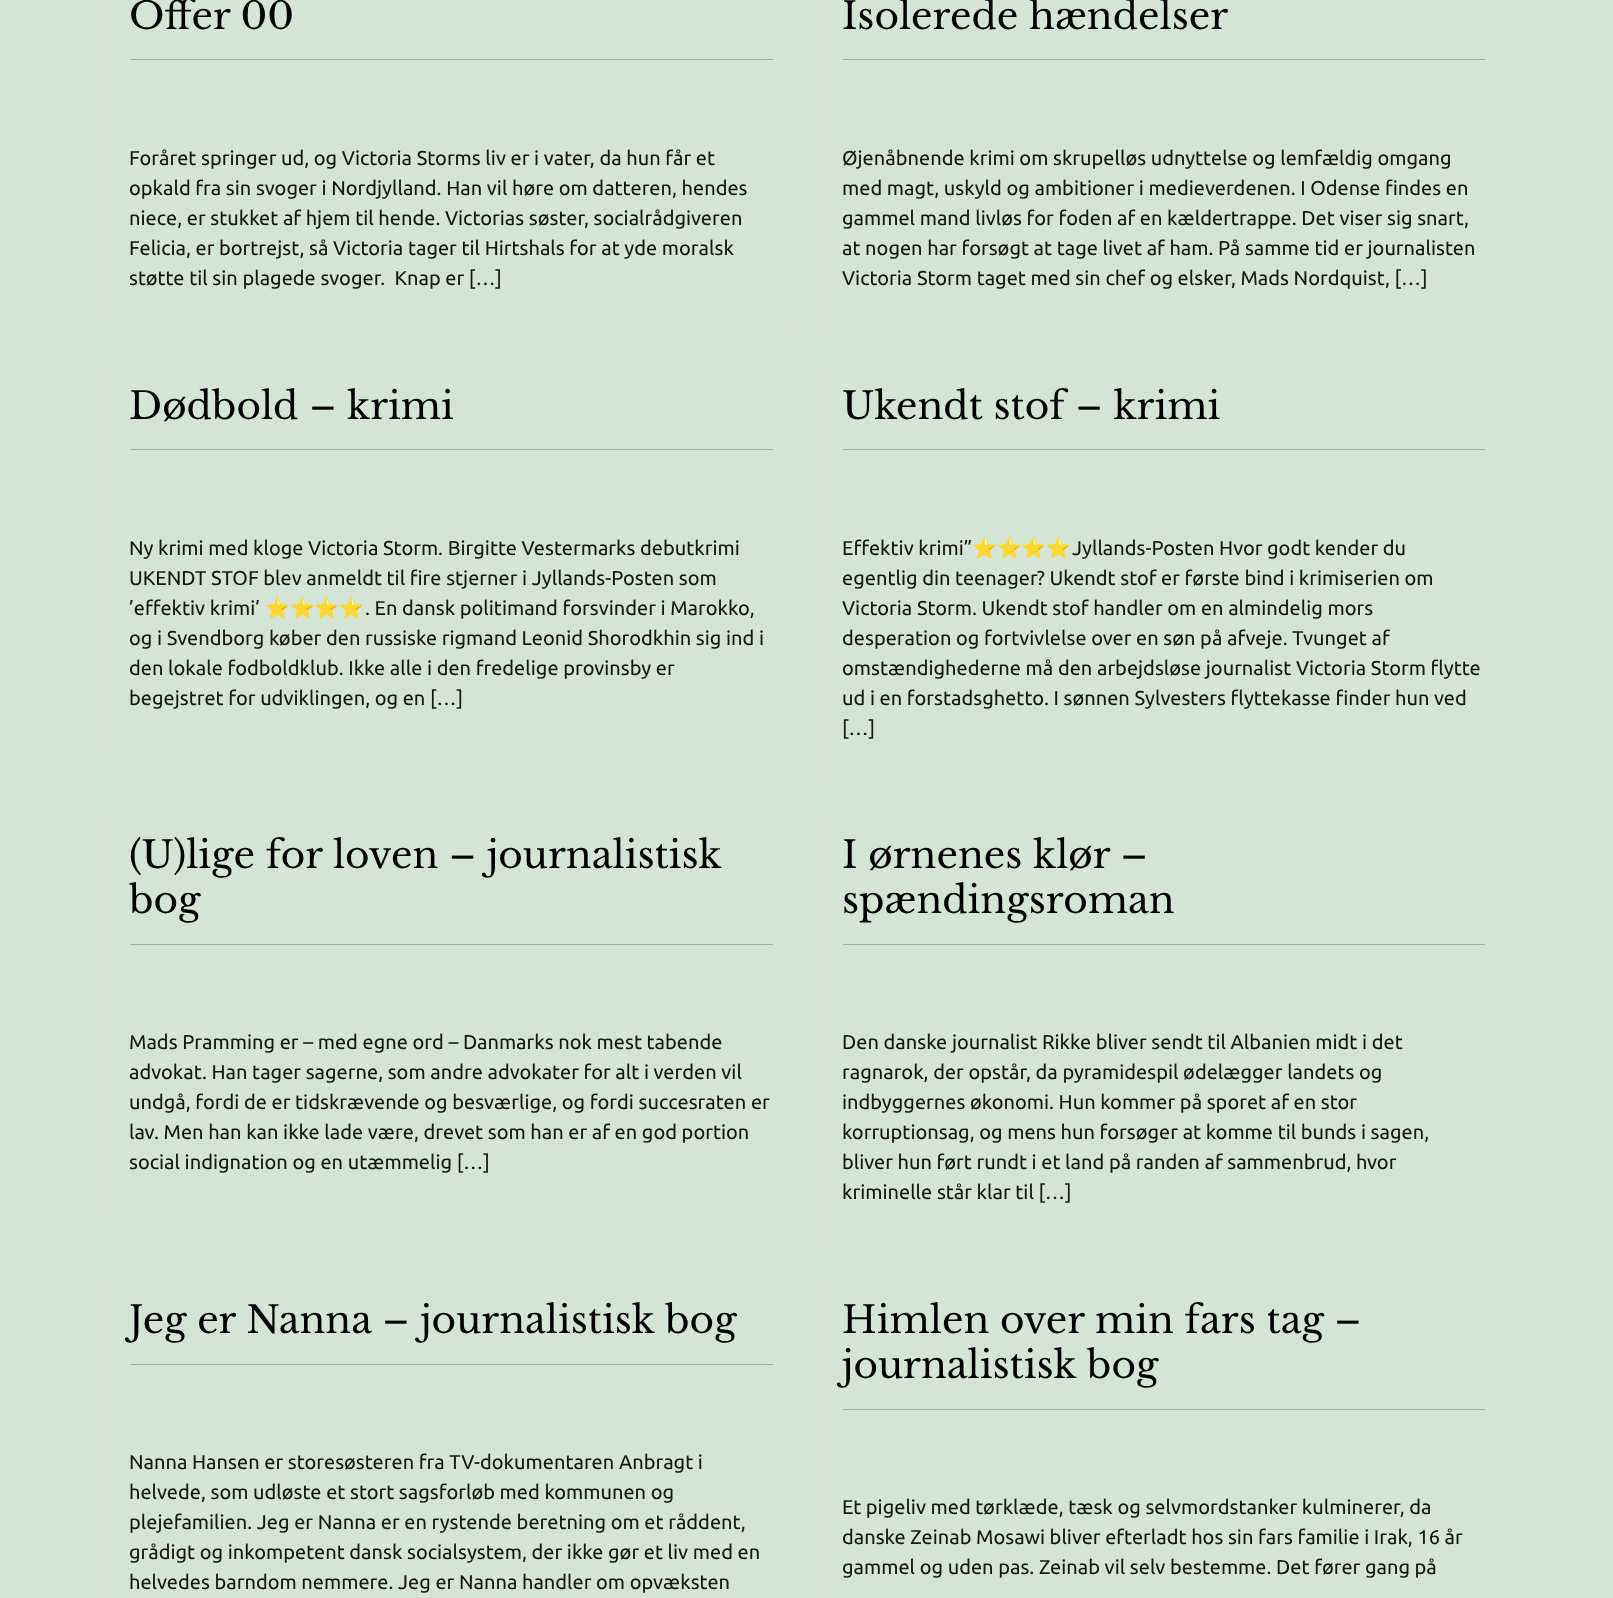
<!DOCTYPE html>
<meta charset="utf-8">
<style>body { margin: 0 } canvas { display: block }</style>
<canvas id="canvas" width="1613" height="1598"></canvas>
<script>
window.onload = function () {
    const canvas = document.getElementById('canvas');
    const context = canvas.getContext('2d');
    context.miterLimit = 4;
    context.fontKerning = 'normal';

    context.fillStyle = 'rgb(213, 229, 213)';
    context.fillRect(0, 0, 1613, 1598);
    context.strokeStyle = 'rgb(220, 220, 220)';
    context.strokeRect(110.5, -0.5, 682, 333);
    context.fillStyle = 'rgb(165, 177, 165)';
    context.fillRect(130, 59, 643, 1);
    context.strokeRect(823.5, -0.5, 681, 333);
    context.fillRect(843, 59, 642, 1);
    context.strokeRect(110.5, 364.5, 682, 388);
    context.fillRect(130, 449, 643, 1);
    context.strokeRect(823.5, 364.5, 681, 418);
    context.fillRect(843, 449, 642, 1);
    context.strokeRect(110.5, 814.5, 682, 403);
    context.fillRect(130, 944, 643, 1);
    context.strokeRect(823.5, 814.5, 681, 433);
    context.fillRect(843, 944, 642, 1);
    context.strokeRect(110.5, 1279.5, 682, 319);
    context.fillRect(130, 1364, 643, 1);
    context.strokeRect(823.5, 1279.5, 681, 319);
    context.fillRect(843, 1409, 642, 1);
    context.font = '37.5px Libre Baskerville';
    context.fillStyle = 'rgb(0, 0, 0)';
    context.fillText('Offer 00', 129, 29);
    context.font = '20px Ubuntu';
    context.fillStyle = 'rgb(22, 22, 22)';
    context.fillText('Foråret springer ud, og Victoria Storms liv er i vater, da hun får et', 129, 165);
    context.fillText('opkald fra sin svoger i Nordjylland. Han vil høre om datteren, hendes', 129, 195);
    context.fillText('niece, er stukket af hjem til hende. Victorias søster, socialrådgiveren', 129, 225);
    context.fillText('Felicia, er bortrejst, så Victoria tager til Hirtshals for at yde moralsk', 129, 255);
    context.fillText('støtte til sin plagede svoger.  Knap er […]', 129, 285);
    context.font = '37.5px Libre Baskerville';
    context.fillStyle = 'rgb(0, 0, 0)';
    context.fillText('Isolerede hændelser', 842, 29);
    context.font = '20px Ubuntu';
    context.fillStyle = 'rgb(22, 22, 22)';
    context.fillText('Øjenåbnende krimi om skrupelløs udnyttelse og lemfældig omgang', 842, 165);
    context.fillText('med magt, uskyld og ambitioner i medieverdenen. I Odense findes en', 842, 195);
    context.fillText('gammel mand livløs for foden af en kældertrappe. Det viser sig snart,', 842, 225);
    context.fillText('at nogen har forsøgt at tage livet af ham. På samme tid er journalisten', 842, 255);
    context.fillText('Victoria Storm taget med sin chef og elsker, Mads Nordquist, […]', 842, 285);
    context.font = '37.5px Libre Baskerville';
    context.fillStyle = 'rgb(0, 0, 0)';
    context.fillText('Dødbold – krimi', 129, 419);
    context.font = '20px Ubuntu';
    context.fillStyle = 'rgb(22, 22, 22)';
    context.fillText('Ny krimi med kloge Victoria Storm. Birgitte Vestermarks debutkrimi', 129, 555);
    context.fillText('UKENDT STOF blev anmeldt til fire stjerner i Jyllands-Posten som', 129, 585);
    context.fillText('’effektiv krimi’', 129, 615);
    context.font = '20px Noto Color Emoji';
    context.fillText('⭐️⭐️⭐️⭐️', 265, 615);
    context.font = '20px Ubuntu';
    context.fillText('. En dansk politimand forsvinder i Marokko,', 365, 615);
    context.fillText('og i Svendborg køber den russiske rigmand Leonid Shorodkhin sig ind i', 129, 645);
    context.fillText('den lokale fodboldklub. Ikke alle i den fredelige provinsby er', 129, 675);
    context.fillText('begejstret for udviklingen, og en […]', 129, 705);
    context.font = '37.5px Libre Baskerville';
    context.fillStyle = 'rgb(0, 0, 0)';
    context.fillText('Ukendt stof – krimi', 842, 419);
    context.font = '20px Ubuntu';
    context.fillStyle = 'rgb(22, 22, 22)';
    context.fillText('Effektiv krimi”', 842, 555);
    context.font = '20px Noto Color Emoji';
    context.fillText('⭐️⭐️⭐️⭐️', 972, 555);
    context.font = '20px Ubuntu';
    context.fillText('Jyllands-Posten Hvor godt kender du', 1072, 555);
    context.fillText('egentlig din teenager? Ukendt stof er første bind i krimiserien om', 842, 585);
    context.fillText('Victoria Storm. Ukendt stof handler om en almindelig mors', 842, 615);
    context.fillText('desperation og fortvivlelse over en søn på afveje. Tvunget af', 842, 645);
    context.fillText('omstændighederne må den arbejdsløse journalist Victoria Storm flytte', 842, 675);
    context.fillText('ud i en forstadsghetto. I sønnen Sylvesters flyttekasse finder hun ved', 842, 705);
    context.fillText('[…]', 842, 735);
    context.font = '37.5px Libre Baskerville';
    context.fillStyle = 'rgb(0, 0, 0)';
    context.fillText('(U)lige for loven – journalistisk', 129, 868);
    context.fillText('bog', 129, 913);
    context.font = '20px Ubuntu';
    context.fillStyle = 'rgb(22, 22, 22)';
    context.fillText('Mads Pramming er – med egne ord – Danmarks nok mest tabende', 129, 1049);
    context.fillText('advokat. Han tager sagerne, som andre advokater for alt i verden vil', 129, 1079);
    context.fillText('undgå, fordi de er tidskrævende og besværlige, og fordi succesraten er', 129, 1109);
    context.fillText('lav. Men han kan ikke lade være, drevet som han er af en god portion', 129, 1139);
    context.fillText('social indignation og en utæmmelig […]', 129, 1169);
    context.font = '37.5px Libre Baskerville';
    context.fillStyle = 'rgb(0, 0, 0)';
    context.fillText('I ørnenes klør –', 842, 868);
    context.fillText('spændingsroman', 842, 913);
    context.font = '20px Ubuntu';
    context.fillStyle = 'rgb(22, 22, 22)';
    context.fillText('Den danske journalist Rikke bliver sendt til Albanien midt i det', 842, 1049);
    context.fillText('ragnarok, der opstår, da pyramidespil ødelægger landets og', 842, 1079);
    context.fillText('indbyggernes økonomi. Hun kommer på sporet af en stor', 842, 1109);
    context.fillText('korruptionsag, og mens hun forsøger at komme til bunds i sagen,', 842, 1139);
    context.fillText('bliver hun ført rundt i et land på randen af sammenbrud, hvor', 842, 1169);
    context.fillText('kriminelle står klar til […]', 842, 1199);
    context.font = '37.5px Libre Baskerville';
    context.fillStyle = 'rgb(0, 0, 0)';
    context.fillText('Jeg er Nanna – journalistisk bog', 129, 1333);
    context.font = '20px Ubuntu';
    context.fillStyle = 'rgb(22, 22, 22)';
    context.fillText('Nanna Hansen er storesøsteren fra TV-dokumentaren Anbragt i', 129, 1469);
    context.fillText('helvede, som udløste et stort sagsforløb med kommunen og', 129, 1499);
    context.fillText('plejefamilien. Jeg er Nanna er en rystende beretning om et råddent,', 129, 1529);
    context.fillText('grådigt og inkompetent dansk socialsystem, der ikke gør et liv med en', 129, 1559);
    context.fillText('helvedes barndom nemmere. Jeg er Nanna handler om opvæksten', 129, 1589);
    context.font = '37.5px Libre Baskerville';
    context.fillStyle = 'rgb(0, 0, 0)';
    context.fillText('Himlen over min fars tag –', 842, 1333);
    context.fillText('journalistisk bog', 842, 1378);
    context.font = '20px Ubuntu';
    context.fillStyle = 'rgb(22, 22, 22)';
    context.fillText('Et pigeliv med tørklæde, tæsk og selvmordstanker kulminerer, da', 842, 1514);
    context.fillText('danske Zeinab Mosawi bliver efterladt hos sin fars familie i Irak, 16 år', 842, 1544);
    context.fillText('gammel og uden pas. Zeinab vil selv bestemme. Det fører gang på', 842, 1574);
};
</script>
